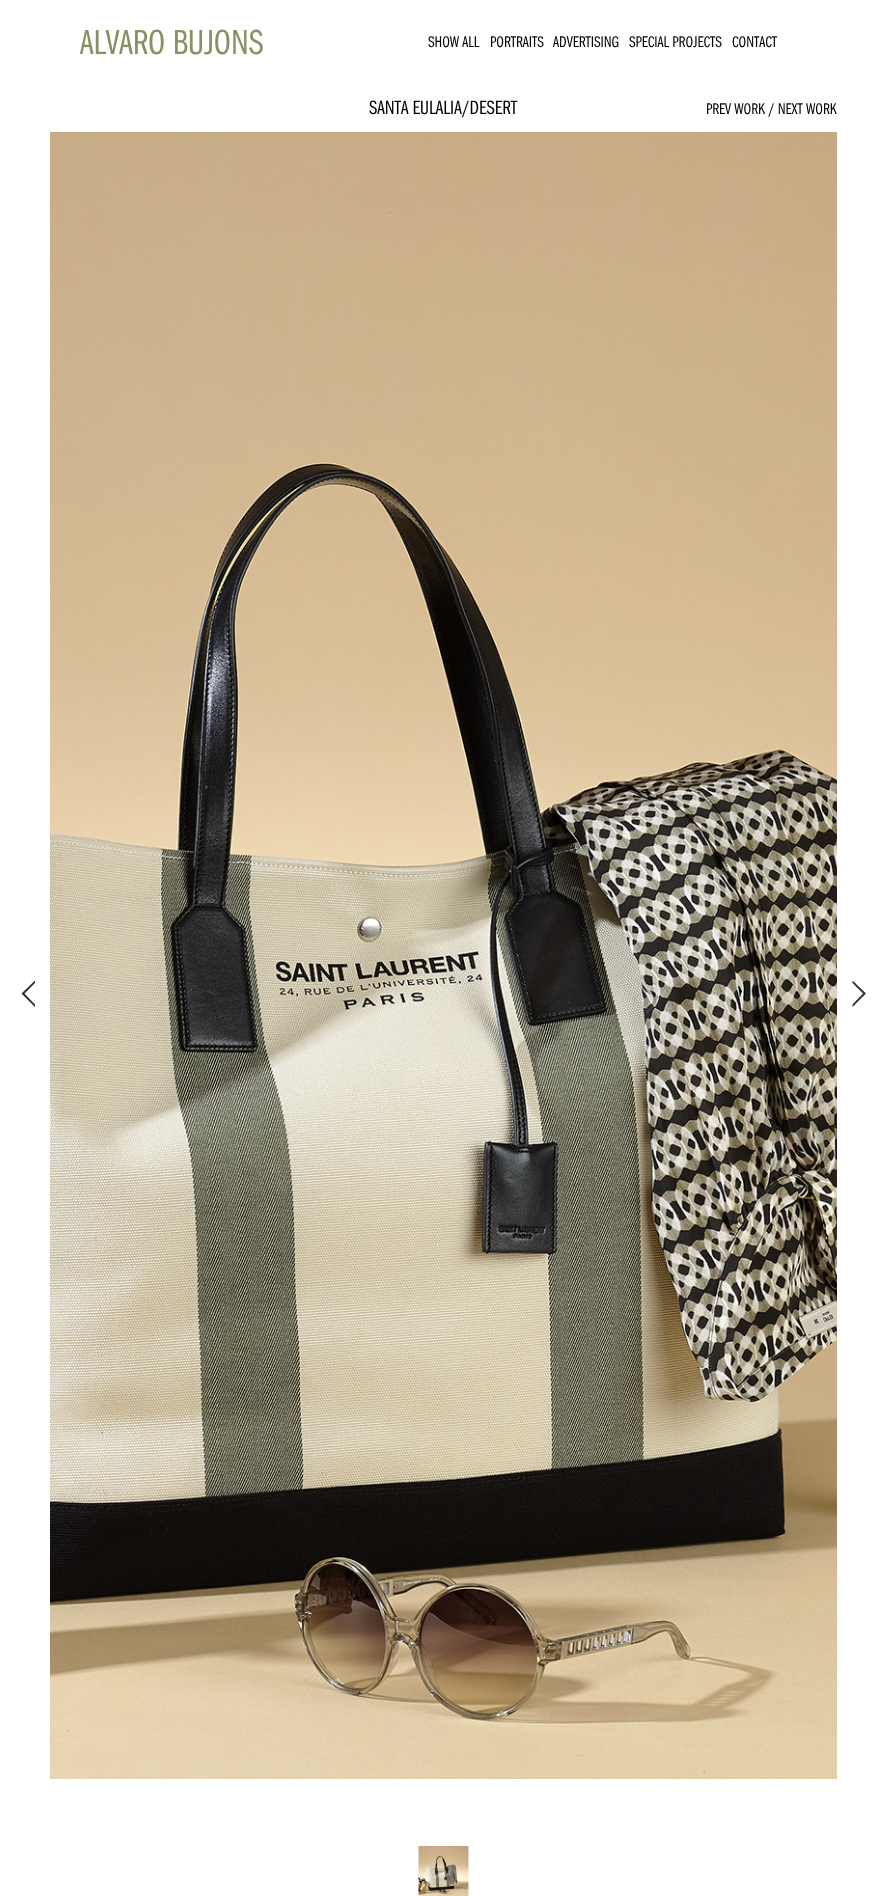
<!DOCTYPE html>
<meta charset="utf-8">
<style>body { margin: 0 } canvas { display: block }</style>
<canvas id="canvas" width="887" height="1896"></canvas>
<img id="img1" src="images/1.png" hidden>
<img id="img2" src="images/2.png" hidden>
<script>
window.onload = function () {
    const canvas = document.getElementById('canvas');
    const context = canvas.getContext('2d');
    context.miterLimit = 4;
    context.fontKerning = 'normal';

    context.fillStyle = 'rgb(255, 255, 255)';
    context.fillRect(0, 0, 887, 1896);
    context.fillStyle = 'rgb(51, 51, 51)';
    context.beginPath();
    context.moveTo(21.5, 993.5);
    context.lineTo(35, 1007);
    context.lineTo(35, 1004.5);
    context.lineTo(24.5, 993.5);
    context.lineTo(35, 983);
    context.lineTo(35, 980.5);
    context.closePath();
    context.fill();
    context.drawImage(document.getElementById('img1'), 50, 132, 787, 1647);
    context.beginPath();
    context.moveTo(866, 993.5);
    context.lineTo(852.5, 980.5);
    context.lineTo(852.5, 983);
    context.lineTo(863, 993.5);
    context.lineTo(852.5, 1004.5);
    context.lineTo(852.5, 1007);
    context.closePath();
    context.fill();
    context.drawImage(document.getElementById('img2'), 418, 1846, 51, 50);
    context.font = '36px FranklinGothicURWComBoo';
    context.fillStyle = 'rgb(137, 144, 100)';
    context.fillText('ALVARO BUJONS', 80, 54);
    context.font = '16px FranklinGothicURWComBoo';
    context.fillStyle = 'rgb(0, 0, 0)';
    context.fillText('SHOW ALL', 428, 47);
    context.fillText('PORTRAITS', 490, 47);
    context.fillText('ADVERTISING', 553, 47);
    context.fillText('SPECIAL PROJECTS', 629, 47);
    context.fillText('CONTACT', 732, 47);
    context.font = '20px FranklinGothicURWComBoo';
    context.fillText('SANTA EULALIA/DESERT', 369, 114);
    context.font = '16px FranklinGothicURWComBoo';
    context.fillText('PREV WORK / NEXT WORK', 706, 114);
};
</script>
